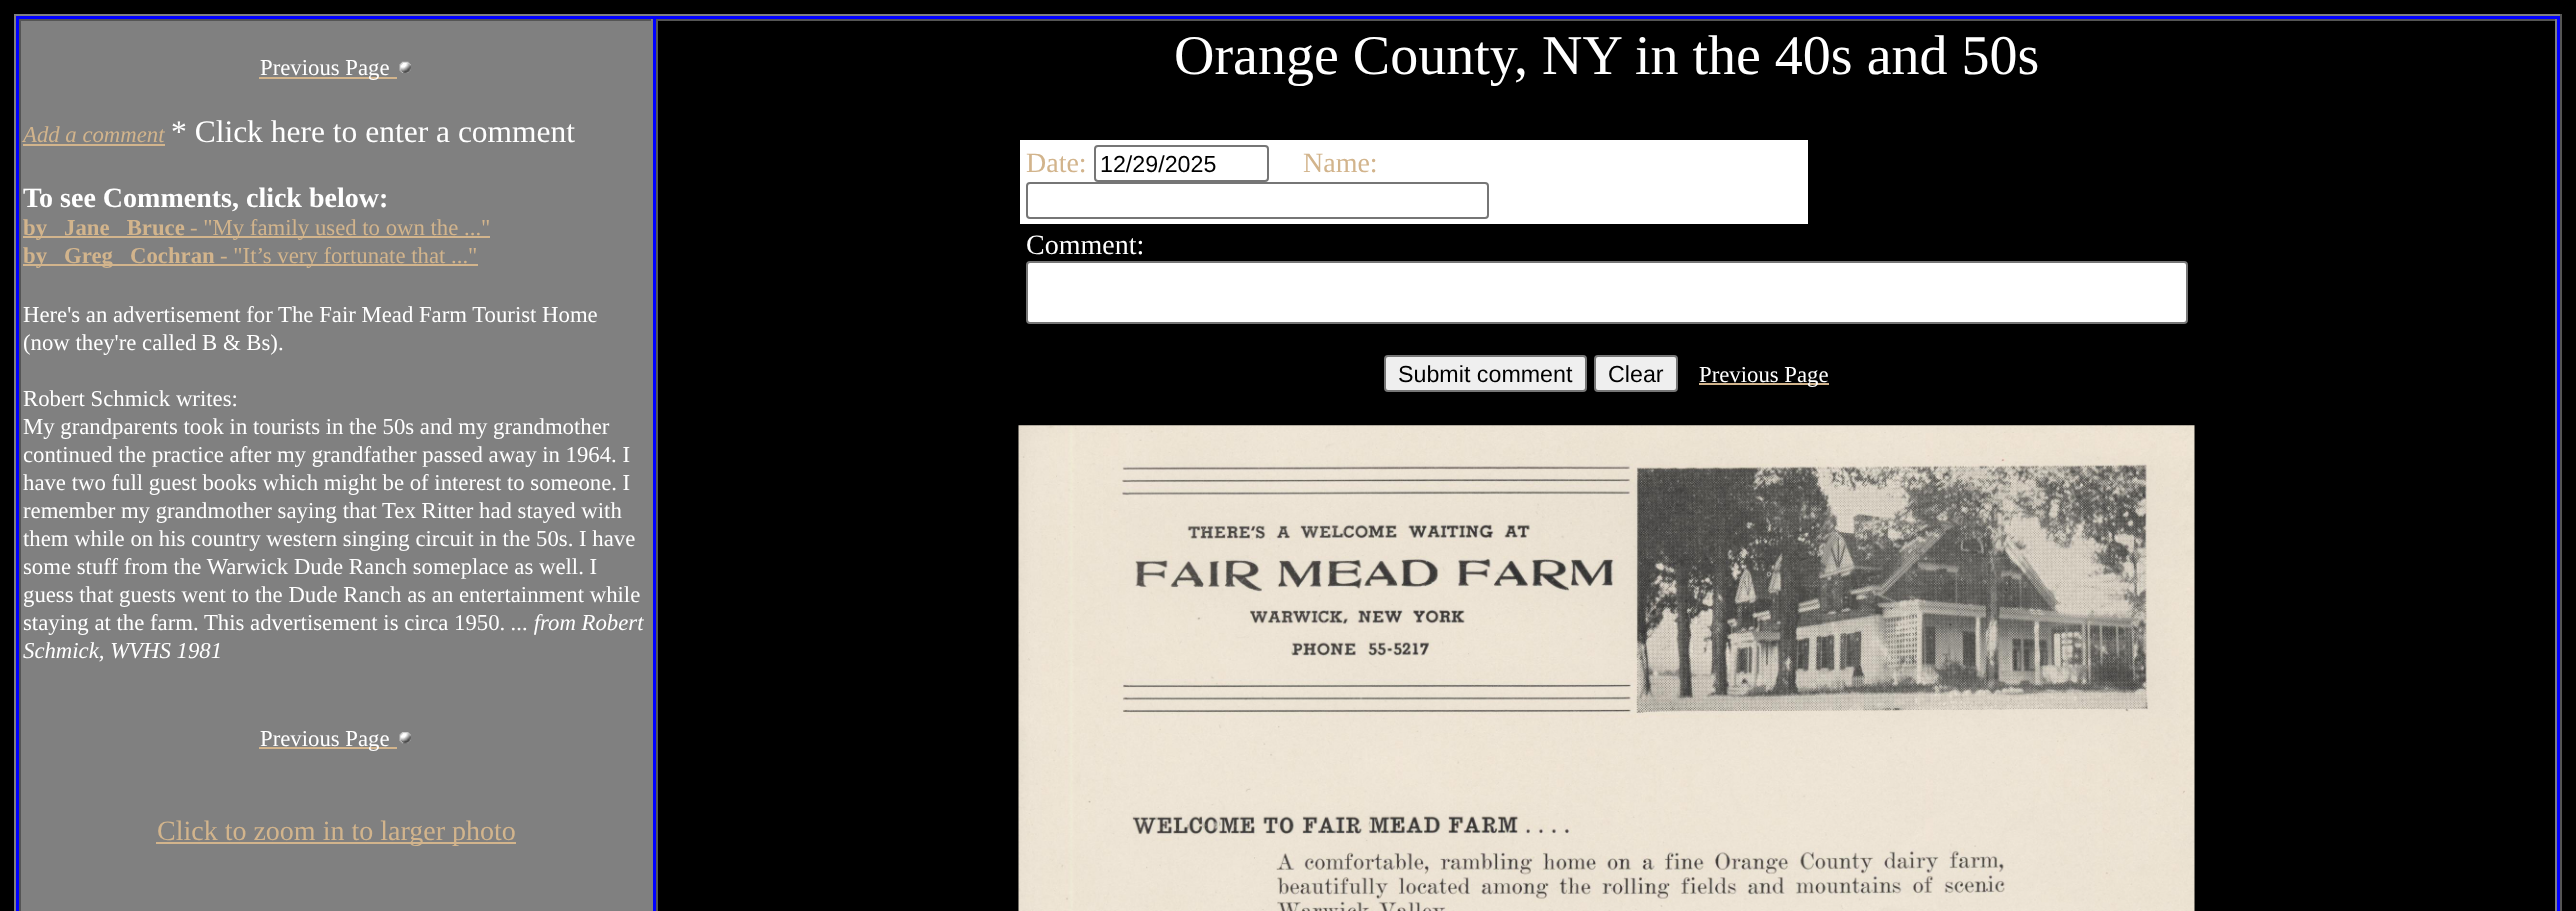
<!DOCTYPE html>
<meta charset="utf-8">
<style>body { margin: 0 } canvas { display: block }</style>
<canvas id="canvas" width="2576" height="911"></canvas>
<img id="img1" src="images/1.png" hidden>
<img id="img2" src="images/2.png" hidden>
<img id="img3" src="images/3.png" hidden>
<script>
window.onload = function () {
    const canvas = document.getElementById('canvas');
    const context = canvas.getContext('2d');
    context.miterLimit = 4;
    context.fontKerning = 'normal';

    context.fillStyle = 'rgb(0, 0, 0)';
    context.fillRect(0, 0, 2576, 911);
    context.fillStyle = 'rgb(0, 0, 255)';
    context.fillRect(16, 16, 2544, 895);
    context.fillStyle = 'rgb(128, 128, 128)';
    context.fillRect(14, 14, 2548, 2);
    context.fillStyle = 'rgb(85, 85, 85)';
    context.fillRect(2560, 14, 2, 897);
    context.fillStyle = 'rgb(128, 128, 128)';
    context.fillRect(14, 14, 2, 897);
    context.fillRect(21, 21, 630, 890);
    context.fillStyle = 'rgb(85, 85, 85)';
    context.fillRect(19, 19, 634, 2);
    context.fillStyle = 'rgb(128, 128, 128)';
    context.fillRect(651, 19, 2, 892);
    context.fillStyle = 'rgb(85, 85, 85)';
    context.fillRect(19, 19, 2, 892);
    context.fillStyle = 'rgb(210, 180, 140)';
    context.fillRect(259, 77, 138, 2);
    context.drawImage(document.getElementById('img1'), 399, 61, 12, 12);
    context.fillRect(23, 144, 142, 2);
    context.fillRect(23, 236, 467, 2);
    context.fillRect(23, 264, 455, 2);
    context.fillRect(259, 747, 138, 2);
    context.drawImage(document.getElementById('img2'), 399, 732, 12, 12);
    context.fillRect(156, 842, 360, 2);
    context.fillStyle = 'rgb(0, 0, 0)';
    context.fillRect(658, 21, 1897, 890);
    context.fillStyle = 'rgb(85, 85, 85)';
    context.fillRect(656, 19, 1901, 2);
    context.fillStyle = 'rgb(128, 128, 128)';
    context.fillRect(2555, 19, 2, 892);
    context.fillStyle = 'rgb(85, 85, 85)';
    context.fillRect(656, 19, 2, 892);
    context.fillStyle = 'rgb(255, 255, 255)';
    context.fillRect(1020, 140, 788, 84);
    context.beginPath();
    context.roundRect(1095, 146, 173, 35, 3);
    context.strokeStyle = 'rgb(118, 118, 118)';
    context.lineWidth = 2;
    context.stroke();
    context.beginPath();
    context.roundRect(1027, 183, 461, 35, 3);
    context.stroke();
    context.beginPath();
    context.roundRect(1027, 262, 1160, 61, 3);
    context.fill();
    context.stroke();
    context.fillStyle = 'rgb(239, 239, 239)';
    context.beginPath();
    context.roundRect(1385, 356, 201, 35, 3);
    context.fill();
    context.stroke();
    context.beginPath();
    context.roundRect(1595, 356, 82, 35, 3);
    context.fill();
    context.stroke();
    context.fillStyle = 'rgb(210, 180, 140)';
    context.fillRect(1699, 383, 130, 2);
    context.drawImage(document.getElementById('img3'), 1018, 425, 1177, 486);
    context.font = '22.75px Liberation Serif';
    context.fillStyle = 'rgb(255, 255, 255)';
    context.fillText('Previous Page', 260, 75);
    context.font = 'italic 22.75px Liberation Serif';
    context.fillStyle = 'rgb(210, 180, 140)';
    context.fillText('Add a comment', 23, 142);
    context.font = '31.5px Liberation Serif';
    context.fillStyle = 'rgb(255, 255, 255)';
    context.fillText('* Click here to enter a comment', 171, 142);
    context.font = 'bold 28px Liberation Serif';
    context.fillText('To see Comments, click below:', 23, 207);
    context.font = 'bold 22.75px Liberation Serif';
    context.fillStyle = 'rgb(210, 180, 140)';
    context.fillText('by   Jane   Bruce', 23, 235);
    context.font = '22.75px Liberation Serif';
    context.fillText('- "My family used to own the ..."', 190, 235);
    context.font = 'bold 22.75px Liberation Serif';
    context.fillText('by   Greg   Cochran', 23, 263);
    context.font = '22.75px Liberation Serif';
    context.fillText('- "It’s very fortunate that ..."', 220, 263);
    context.fillStyle = 'rgb(255, 255, 255)';
    context.fillText('Here\'s an advertisement for The Fair Mead Farm Tourist Home', 23, 322);
    context.fillText('(now they\'re called B & Bs).', 23, 350);
    context.fillText('Robert Schmick writes:', 23, 406);
    context.fillText('My grandparents took in tourists in the 50s and my grandmother', 23, 434);
    context.fillText('continued the practice after my grandfather passed away in 1964. I', 23, 462);
    context.fillText('have two full guest books which might be of interest to someone. I', 23, 490);
    context.fillText('remember my grandmother saying that Tex Ritter had stayed with', 23, 518);
    context.fillText('them while on his country western singing circuit in the 50s. I have', 23, 546);
    context.fillText('some stuff from the Warwick Dude Ranch someplace as well. I', 23, 574);
    context.fillText('guess that guests went to the Dude Ranch as an entertainment while', 23, 602);
    context.fillText('staying at the farm. This advertisement is circa 1950.', 23, 630);
    context.font = 'italic 22.75px Liberation Serif';
    context.fillText('... from Robert', 511, 630);
    context.fillText('Schmick, WVHS 1981', 23, 658);
    context.font = '22.75px Liberation Serif';
    context.fillText('Previous Page', 260, 746);
    context.font = '28px Liberation Serif';
    context.fillStyle = 'rgb(210, 180, 140)';
    context.fillText('Click to zoom in to larger photo', 157, 840);
    context.font = '56px Liberation Serif';
    context.fillStyle = 'rgb(255, 255, 255)';
    context.fillText('Orange County, NY in the 40s and 50s', 1174, 74);
    context.font = '28px Liberation Serif';
    context.fillStyle = 'rgb(210, 180, 140)';
    context.fillText('Date:', 1026, 172);
    context.font = '23.25px Liberation Sans';
    context.fillStyle = 'rgb(0, 0, 0)';
    context.fillText('12/29/2025', 1100, 172);
    context.font = '28px Liberation Serif';
    context.fillStyle = 'rgb(210, 180, 140)';
    context.fillText('Name:', 1303, 172);
    context.fillStyle = 'rgb(255, 255, 255)';
    context.fillText('Comment:', 1026, 254);
    context.font = '23.25px Liberation Sans';
    context.fillStyle = 'rgb(0, 0, 0)';
    context.fillText('Submit comment', 1398, 382);
    context.fillText('Clear', 1608, 382);
    context.font = '22.75px Liberation Serif';
    context.fillStyle = 'rgb(255, 255, 255)';
    context.fillText('Previous Page', 1699, 382);
};
</script>
